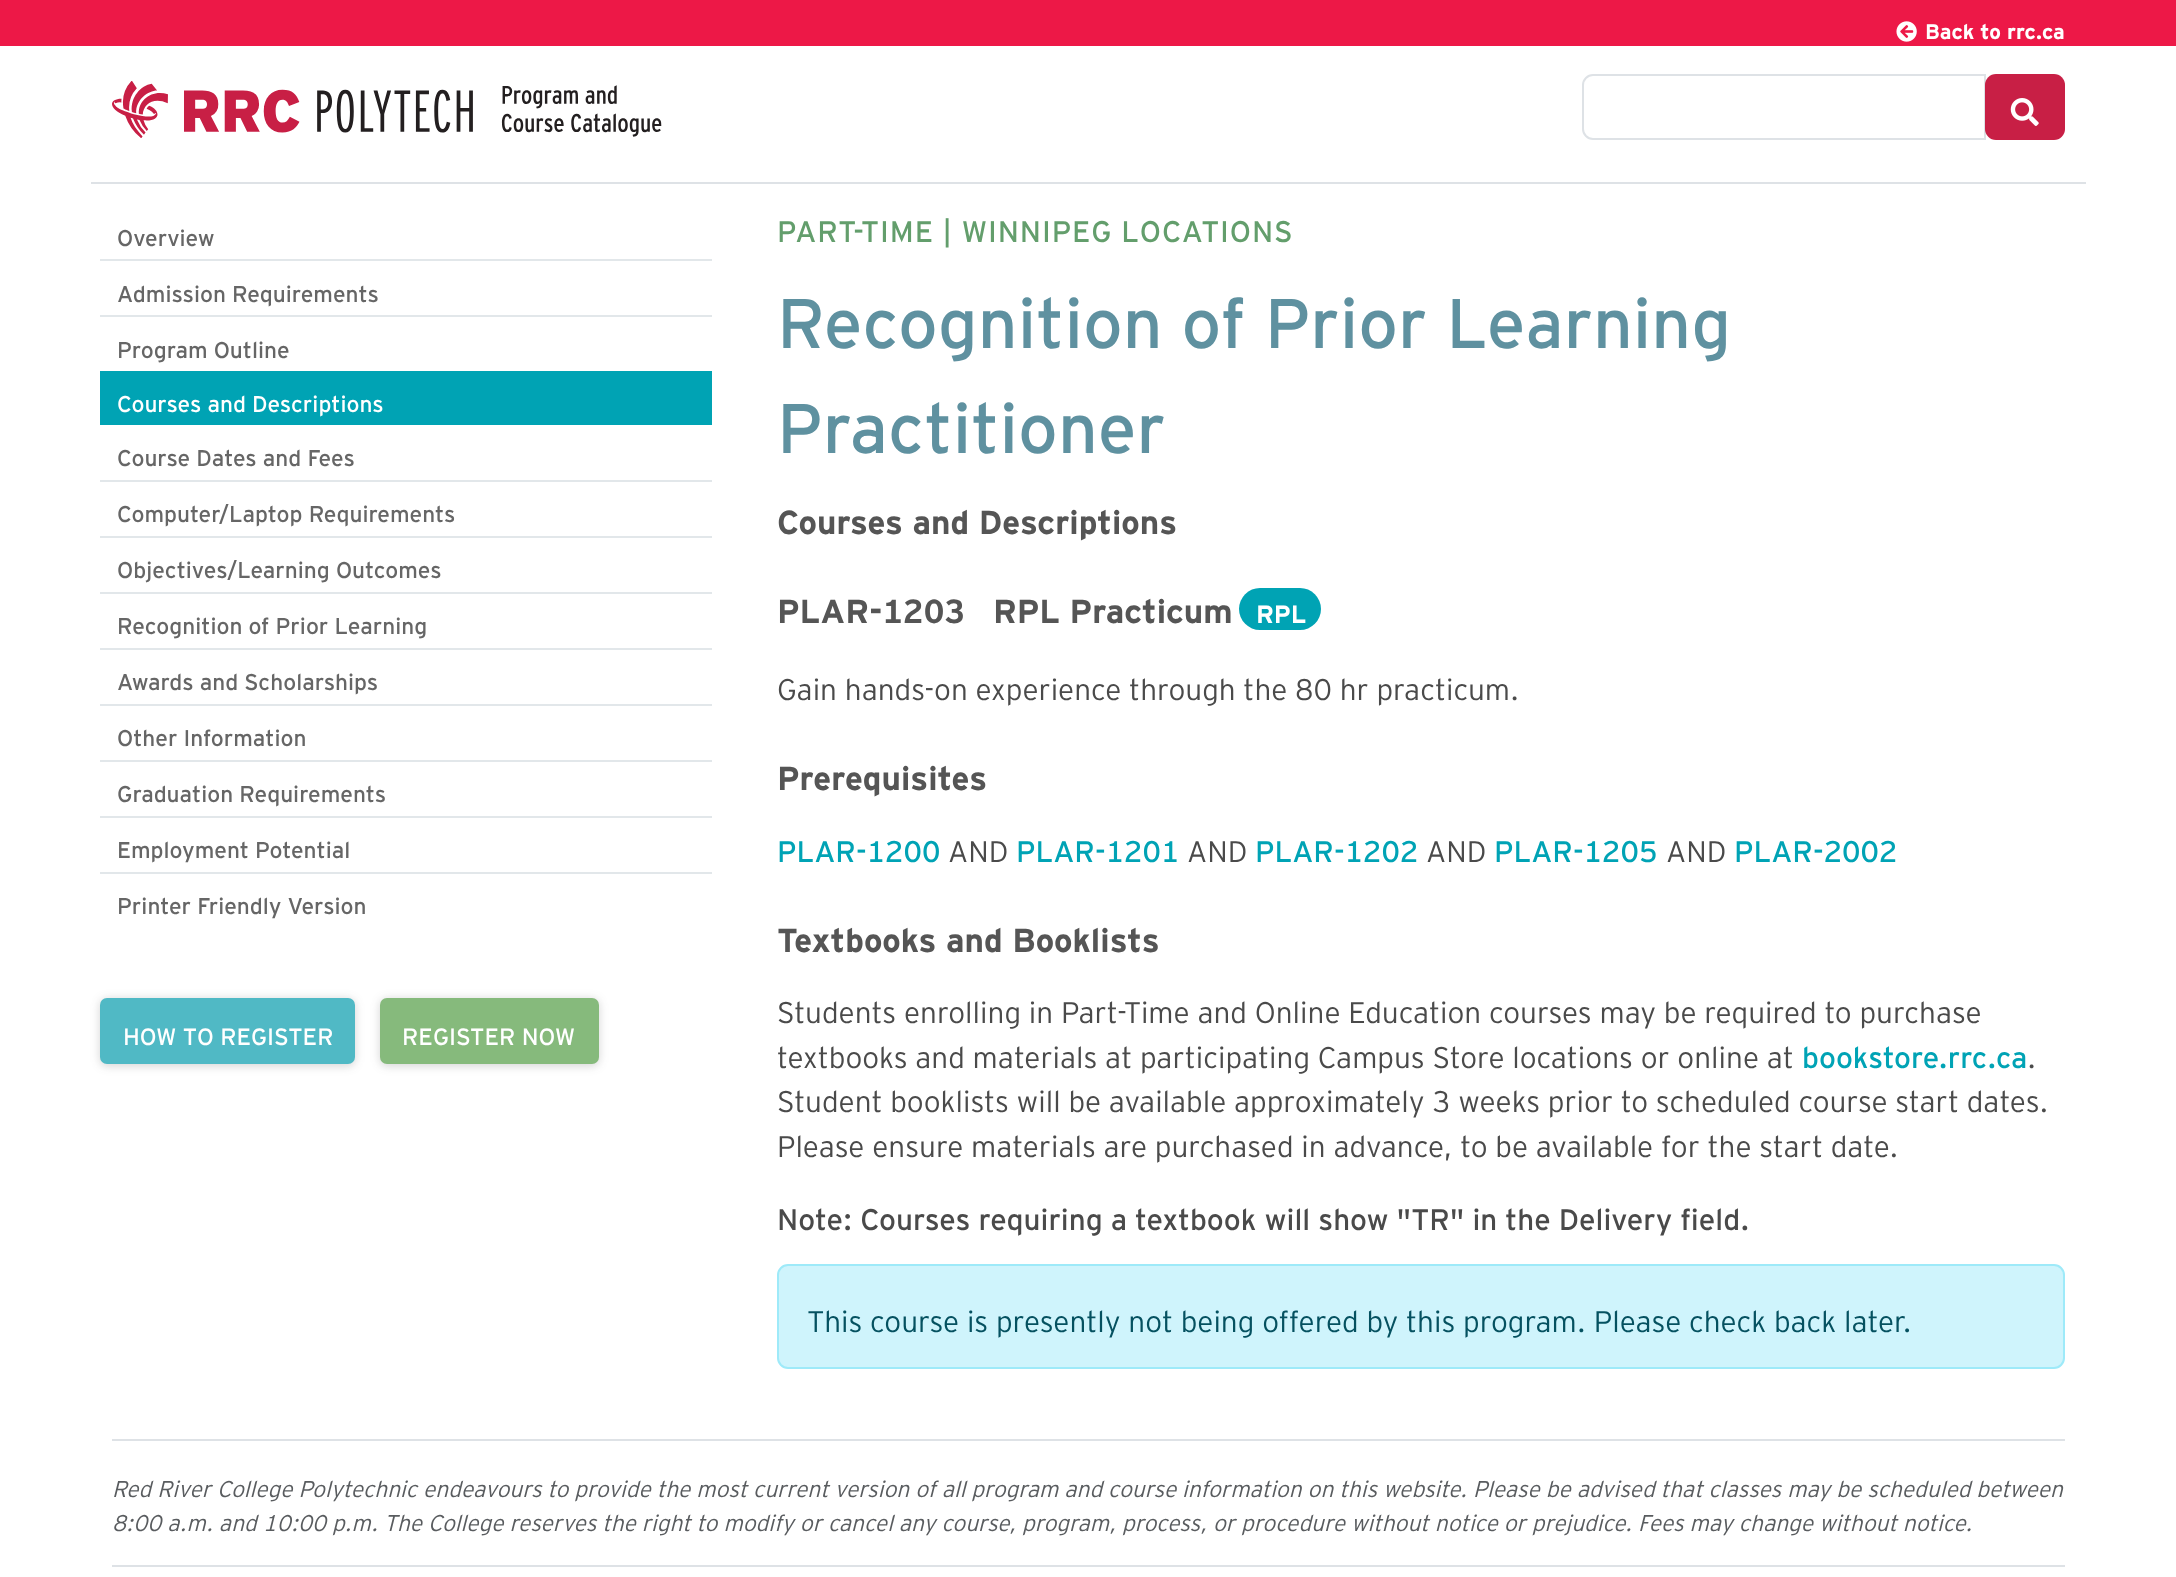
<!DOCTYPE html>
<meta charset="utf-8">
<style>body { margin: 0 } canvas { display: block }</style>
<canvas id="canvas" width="2176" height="1577"></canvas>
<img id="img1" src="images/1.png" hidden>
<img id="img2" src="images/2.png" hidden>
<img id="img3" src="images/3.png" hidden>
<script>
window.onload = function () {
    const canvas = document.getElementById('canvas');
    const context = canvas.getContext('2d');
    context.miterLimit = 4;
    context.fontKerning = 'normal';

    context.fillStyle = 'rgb(255, 255, 255)';
    context.fillRect(0, 0, 2176, 1577);
    context.fillStyle = 'rgb(237, 24, 71)';
    context.fillRect(0, 0, 2176, 46);
    context.drawImage(document.getElementById('img1'), 1896, 21, 21, 21);
    context.fillStyle = 'rgb(222, 226, 230)';
    context.fillRect(91, 182, 1995, 2);
    context.drawImage(document.getElementById('img2'), 112, 81, 550, 57);
    context.beginPath();
    context.roundRect(1583, 75, 402, 64, [10, 0, 0, 10]);
    context.strokeStyle = 'rgb(222, 226, 230)';
    context.lineWidth = 2;
    context.stroke();
    context.fillStyle = 'rgb(200, 31, 69)';
    context.beginPath();
    context.roundRect(1985, 74, 80, 66, 11);
    context.fill();
    context.drawImage(document.getElementById('img3'), 2010, 98, 29, 28);
    context.fillStyle = 'rgb(226, 231, 234)';
    context.fillRect(100, 259, 612, 2);
    context.fillRect(100, 315, 612, 2);
    context.fillStyle = 'rgb(0, 163, 180)';
    context.fillRect(100, 371, 612, 54);
    context.fillStyle = 'rgb(226, 231, 234)';
    context.fillRect(100, 480, 612, 2);
    context.fillRect(100, 536, 612, 2);
    context.fillRect(100, 592, 612, 2);
    context.fillRect(100, 648, 612, 2);
    context.fillRect(100, 704, 612, 2);
    context.fillRect(100, 760, 612, 2);
    context.fillRect(100, 816, 612, 2);
    context.fillRect(100, 872, 612, 2);
    context.fillStyle = 'rgba(54, 54, 54, 0.21)';
    context.filter = 'blur(5px)';
    context.beginPath();
    context.roundRect(100, 999, 255, 67, 7);
    context.fill();
    context.filter = 'none';
    context.fillStyle = 'rgb(80, 185, 197)';
    context.beginPath();
    context.roundRect(100, 998, 255, 66, 7);
    context.fill();
    context.fillStyle = 'rgba(54, 54, 54, 0.21)';
    context.filter = 'blur(5px)';
    context.beginPath();
    context.roundRect(380, 999, 219, 67, 7);
    context.fill();
    context.filter = 'none';
    context.fillStyle = 'rgb(134, 186, 124)';
    context.beginPath();
    context.roundRect(380, 998, 219, 66, 7);
    context.fill();
    context.fillStyle = 'rgb(0, 163, 180)';
    context.beginPath();
    context.roundRect(1239, 588, 82, 42, 21);
    context.fill();
    context.fillStyle = 'rgb(207, 244, 252)';
    context.beginPath();
    context.roundRect(778, 1265, 1286, 103, 10);
    context.fill();
    context.strokeStyle = 'rgb(158, 234, 249)';
    context.stroke();
    context.fillStyle = 'rgb(222, 226, 230)';
    context.fillRect(112, 1439, 1953, 2);
    context.fillRect(112, 1565, 1953, 2);
    context.font = 'bold 21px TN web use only';
    context.fillStyle = 'rgb(255, 255, 255)';
    context.fillText('Back to rrc.ca', 1925, 39);
    context.font = '22.75px TN web use only';
    context.fillStyle = 'rgb(102, 102, 102)';
    context.fillText('Overview', 117, 246);
    context.fillText('Admission Requirements', 117, 302);
    context.fillText('Program Outline', 117, 358);
    context.fillStyle = 'rgb(255, 255, 255)';
    context.fillText('Courses and Descriptions', 117, 412);
    context.fillStyle = 'rgb(102, 102, 102)';
    context.fillText('Course Dates and Fees', 117, 466);
    context.fillText('Computer/Laptop Requirements', 117, 522);
    context.fillText('Objectives/Learning Outcomes', 117, 578);
    context.fillText('Recognition of Prior Learning', 117, 634);
    context.fillText('Awards and Scholarships', 117, 690);
    context.fillText('Other Information', 117, 746);
    context.fillText('Graduation Requirements', 117, 802);
    context.fillText('Employment Potential', 117, 858);
    context.fillText('Printer Friendly Version', 117, 914);
    context.font = '23.6px TN web use only';
    context.fillStyle = 'rgb(255, 255, 255)';
    context.fillText('HOW TO REGISTER', 123, 1045);
    context.fillText('REGISTER NOW', 402, 1045);
    context.letterSpacing = '0.9px';
    context.font = '29.75px TN web use only';
    context.fillStyle = 'rgb(99, 158, 108)';
    context.fillText('PART-TIME | WINNIPEG LOCATIONS', 777, 242);
    context.letterSpacing = '0px';
    context.font = '70px TN web use only';
    context.fillStyle = 'rgb(95, 145, 160)';
    context.fillText('Recognition of Prior Learning', 777, 348);
    context.fillText('Practitioner', 777, 453);
    context.font = 'bold 33.25px TN web use only';
    context.fillStyle = 'rgb(85, 85, 85)';
    context.fillText('Courses and Descriptions', 777, 534);
    context.fillText('PLAR-1203', 777, 623);
    context.fillText('RPL Practicum', 993, 623);
    context.font = 'bold 25px TN web use only';
    context.fillStyle = 'rgb(255, 255, 255)';
    context.fillText('RPL', 1256, 623);
    context.font = '300 29.75px TN web use only';
    context.fillStyle = 'rgb(74, 74, 74)';
    context.fillText('Gain hands-on experience through the 80 hr practicum.', 777, 700);
    context.font = 'bold 33.25px TN web use only';
    context.fillStyle = 'rgb(85, 85, 85)';
    context.fillText('Prerequisites', 777, 790);
    context.font = '29.75px TN web use only';
    context.fillStyle = 'rgb(0, 163, 181)';
    context.fillText('PLAR-1200', 777, 862);
    context.font = '300 29.75px TN web use only';
    context.fillStyle = 'rgb(74, 74, 74)';
    context.fillText('AND', 948, 862);
    context.font = '29.75px TN web use only';
    context.fillStyle = 'rgb(0, 163, 181)';
    context.fillText('PLAR-1201', 1016, 862);
    context.font = '300 29.75px TN web use only';
    context.fillStyle = 'rgb(74, 74, 74)';
    context.fillText('AND', 1187, 862);
    context.font = '29.75px TN web use only';
    context.fillStyle = 'rgb(0, 163, 181)';
    context.fillText('PLAR-1202', 1255, 862);
    context.font = '300 29.75px TN web use only';
    context.fillStyle = 'rgb(74, 74, 74)';
    context.fillText('AND', 1426, 862);
    context.font = '29.75px TN web use only';
    context.fillStyle = 'rgb(0, 163, 181)';
    context.fillText('PLAR-1205', 1494, 862);
    context.font = '300 29.75px TN web use only';
    context.fillStyle = 'rgb(74, 74, 74)';
    context.fillText('AND', 1666, 862);
    context.font = '29.75px TN web use only';
    context.fillStyle = 'rgb(0, 163, 181)';
    context.fillText('PLAR-2002', 1734, 862);
    context.font = 'bold 33.25px TN web use only';
    context.fillStyle = 'rgb(85, 85, 85)';
    context.fillText('Textbooks and Booklists', 777, 952);
    context.font = '300 29.75px TN web use only';
    context.fillStyle = 'rgb(74, 74, 74)';
    context.fillText('Students enrolling in Part-Time and Online Education courses may be required to purchase', 777, 1023);
    context.fillText('textbooks and materials at participating Campus Store locations or online at', 777, 1068);
    context.font = '29.75px TN web use only';
    context.fillStyle = 'rgb(0, 163, 181)';
    context.fillText('bookstore.rrc.ca', 1802, 1068);
    context.font = '300 29.75px TN web use only';
    context.fillStyle = 'rgb(74, 74, 74)';
    context.fillText('.', 2027, 1068);
    context.fillText('Student booklists will be available approximately 3 weeks prior to scheduled course start dates.', 777, 1112);
    context.fillText('Please ensure materials are purchased in advance, to be available for the start date.', 777, 1157);
    context.font = '29.75px TN web use only';
    context.fillText('Note: Courses requiring a textbook will show "TR" in the Delivery field.', 777, 1230);
    context.font = '300 29.75px TN web use only';
    context.fillStyle = 'rgb(5, 81, 96)';
    context.fillText('This course is presently not being offered by this program. Please check back later.', 807, 1332);
    context.font = 'italic 300 22.75px TN web use only';
    context.fillStyle = 'rgb(89, 92, 95)';
    context.fillText('Red River College Polytechnic endeavours to provide the most current version of all program and course information on this website. Please be advised that classes may be scheduled between', 112, 1497);
    context.fillText('8:00 a.m. and 10:00 p.m. The College reserves the right to modify or cancel any course, program, process, or procedure without notice or prejudice. Fees may change without notice.', 112, 1531);
};
</script>
